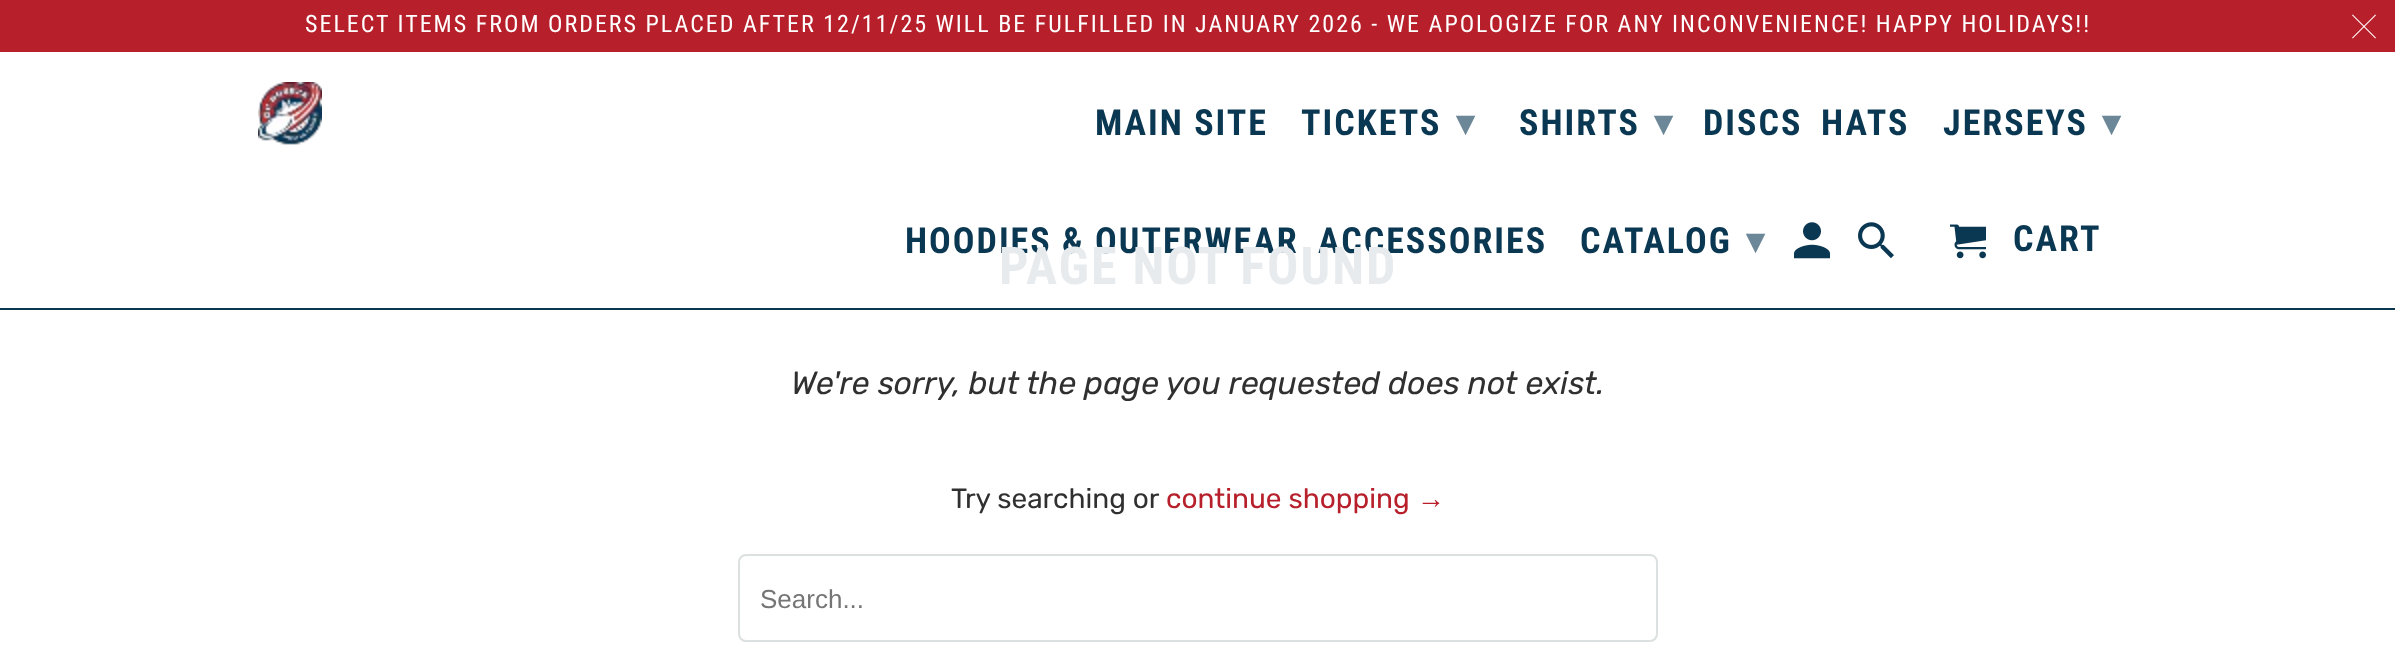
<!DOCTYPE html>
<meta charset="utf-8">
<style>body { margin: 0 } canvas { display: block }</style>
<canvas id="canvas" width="2395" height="672"></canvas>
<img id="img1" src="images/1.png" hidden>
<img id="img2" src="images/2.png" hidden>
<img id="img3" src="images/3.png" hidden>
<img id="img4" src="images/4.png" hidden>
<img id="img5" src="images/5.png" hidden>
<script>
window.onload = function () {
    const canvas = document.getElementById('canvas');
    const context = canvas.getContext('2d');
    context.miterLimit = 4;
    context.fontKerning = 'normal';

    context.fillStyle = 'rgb(255, 255, 255)';
    context.fillRect(0, 0, 2395, 672);
    context.fillStyle = 'rgb(10, 55, 81)';
    context.fillRect(0, 308, 2395, 2);
    context.fillStyle = 'rgb(183, 32, 43)';
    context.fillRect(0, 0, 2395, 52);
    context.drawImage(document.getElementById('img1'), 2352, 14, 24, 25);
    context.drawImage(document.getElementById('img2'), 258, 82, 64, 63);
    context.drawImage(document.getElementById('img3'), 1794, 222, 36, 37);
    context.drawImage(document.getElementById('img4'), 1858, 222, 36, 37);
    context.drawImage(document.getElementById('img5'), 1950, 224, 36, 35);
    context.beginPath();
    context.roundRect(739, 555, 918, 86, 7);
    context.strokeStyle = 'rgb(220, 224, 224)';
    context.lineWidth = 2;
    context.stroke();
    context.letterSpacing = '2px';
    context.font = '24px Roboto Condensed';
    context.fillStyle = 'rgb(255, 255, 255)';
    context.fillText('SELECT ITEMS FROM ORDERS PLACED AFTER 12/11/25 WILL BE FULFILLED IN JANUARY 2026 - WE APOLOGIZE FOR ANY INCONVENIENCE! HAPPY HOLIDAYS!!', 305, 32);
    context.font = 'bold 36px Roboto Condensed';
    context.fillStyle = 'rgb(10, 55, 81)';
    context.fillText('MAIN SITE', 1095, 135);
    context.fillText('TICKETS', 1301, 135);
    context.font = 'bold 36px DejaVu Sans';
    context.fillStyle = 'rgb(108, 135, 151)';
    context.fillText('▾', 1456, 135);
    context.font = 'bold 36px Roboto Condensed';
    context.fillStyle = 'rgb(10, 55, 81)';
    context.fillText('SHIRTS', 1519, 135);
    context.font = 'bold 36px DejaVu Sans';
    context.fillStyle = 'rgb(108, 135, 151)';
    context.fillText('▾', 1654, 135);
    context.font = 'bold 36px Roboto Condensed';
    context.fillStyle = 'rgb(10, 55, 81)';
    context.fillText('DISCS', 1703, 135);
    context.fillText('HATS', 1821, 135);
    context.fillText('JERSEYS', 1943, 135);
    context.font = 'bold 36px DejaVu Sans';
    context.fillStyle = 'rgb(108, 135, 151)';
    context.fillText('▾', 2102, 135);
    context.font = 'bold 36px Roboto Condensed';
    context.fillStyle = 'rgb(10, 55, 81)';
    context.fillText('HOODIES & OUTERWEAR', 905, 253);
    context.fillText('ACCESSORIES', 1318, 253);
    context.fillText('CATALOG', 1580, 253);
    context.font = 'bold 36px DejaVu Sans';
    context.fillStyle = 'rgb(108, 135, 151)';
    context.fillText('▾', 1746, 253);
    context.font = 'bold 36px Roboto Condensed';
    context.fillStyle = 'rgb(10, 55, 81)';
    context.fillText('CART', 2013, 251);
    context.font = 'bold 52px Roboto Condensed';
    context.fillStyle = 'rgb(231, 235, 238)';
    context.fillText('PAGE NOT FOUND', 999, 284);
    context.letterSpacing = '0px';
    context.font = 'italic 32px Rubik';
    context.fillStyle = 'rgb(48, 48, 48)';
    context.fillText('We\'re sorry, but the page you requested does not exist.', 791, 394);
    context.font = '28px Rubik';
    context.fillText('Try searching or', 951, 508);
    context.fillStyle = 'rgb(183, 32, 43)';
    context.fillText('continue shopping', 1166, 508);
    context.font = '28px Liberation Sans';
    context.fillText('→', 1417, 508);
    context.font = '26px Liberation Sans';
    context.fillStyle = 'rgb(117, 117, 117)';
    context.fillText('Search...', 760, 608);
};
</script>
